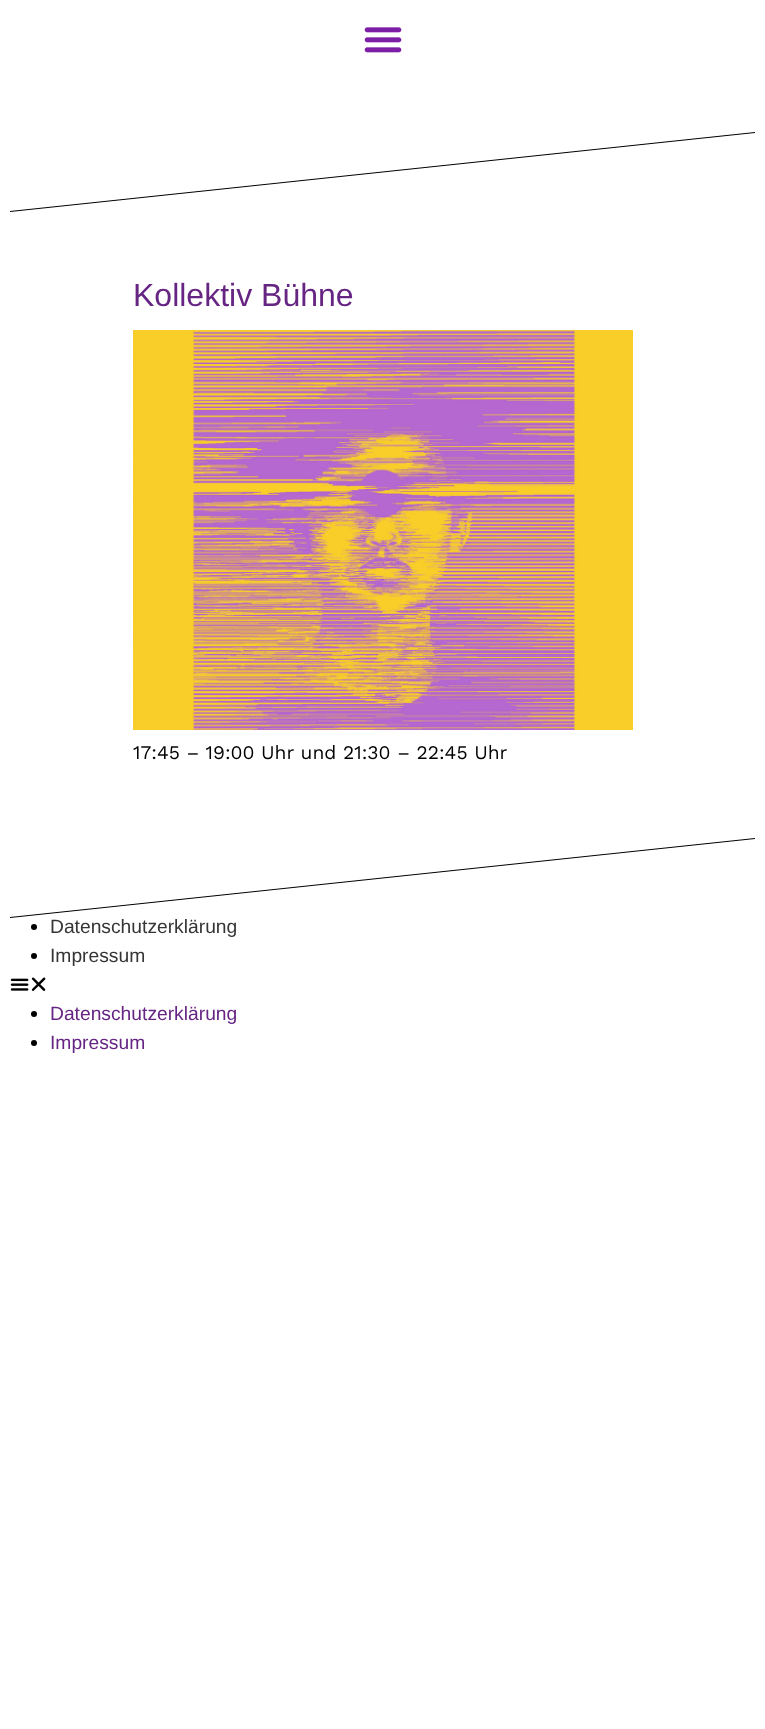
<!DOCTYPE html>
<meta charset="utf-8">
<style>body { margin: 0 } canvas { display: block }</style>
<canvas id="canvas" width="765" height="1729"></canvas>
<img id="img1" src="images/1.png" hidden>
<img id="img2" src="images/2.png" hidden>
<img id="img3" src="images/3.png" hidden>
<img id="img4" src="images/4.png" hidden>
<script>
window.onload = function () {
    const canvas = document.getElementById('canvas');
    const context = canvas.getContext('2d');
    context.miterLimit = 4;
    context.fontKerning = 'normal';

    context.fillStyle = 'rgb(255, 255, 255)';
    context.fillRect(0, 0, 765, 1729);
    context.drawImage(document.getElementById('img1'), 364, 27, 38, 26);
    context.fillStyle = 'rgb(0, 0, 0)';
    context.beginPath();
    context.moveTo(10, 211);
    context.lineTo(755, 132);
    context.lineTo(755, 133);
    context.lineTo(10, 212);
    context.closePath();
    context.fill();
    context.drawImage(document.getElementById('img2'), 133, 330, 500, 400);
    context.beginPath();
    context.moveTo(10, 917);
    context.lineTo(755, 838);
    context.lineTo(755, 839);
    context.lineTo(10, 918);
    context.closePath();
    context.fill();
    context.beginPath();
    context.arc(34, 927, 3, 0, 2 * Math.PI);
    context.fill();
    context.beginPath();
    context.arc(34, 956, 3, 0, 2 * Math.PI);
    context.fill();
    context.drawImage(document.getElementById('img3'), 10, 978, 19, 13);
    context.drawImage(document.getElementById('img4'), 31, 977, 15, 14);
    context.beginPath();
    context.arc(34, 1014, 3, 0, 2 * Math.PI);
    context.fill();
    context.beginPath();
    context.arc(34, 1043, 3, 0, 2 * Math.PI);
    context.fill();
    context.font = '32px Liberation Sans';
    context.fillStyle = 'rgb(102, 36, 131)';
    context.fillText('Kollektiv Bühne', 133, 306);
    context.font = '19.25px Work Sans';
    context.fillStyle = 'rgb(0, 0, 0)';
    context.fillText('17:45 – 19:00 Uhr und 21:30 – 22:45 Uhr', 133, 759);
    context.font = '19.25px Liberation Sans';
    context.fillStyle = 'rgb(53, 53, 53)';
    context.fillText('Datenschutzerklärung', 50, 933);
    context.fillText('Impressum', 50, 962);
    context.fillStyle = 'rgb(102, 36, 131)';
    context.fillText('Datenschutzerklärung', 50, 1020);
    context.fillText('Impressum', 50, 1049);
};
</script>
